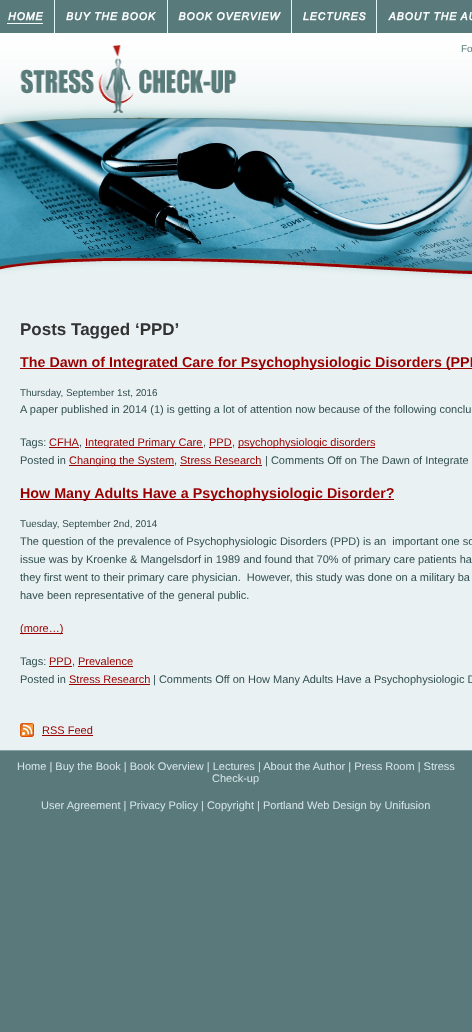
<!DOCTYPE html>
<meta charset="utf-8">
<style>body { margin: 0 } canvas { display: block }</style>
<canvas id="canvas" width="472" height="1032"></canvas>
<img id="img1" src="images/1.png" hidden>
<img id="img2" src="images/2.png" hidden>
<img id="img3" src="images/3.png" hidden>
<img id="img4" src="images/4.png" hidden>
<img id="img5" src="images/5.png" hidden>
<img id="img6" src="images/6.png" hidden>
<img id="img7" src="images/7.png" hidden>
<img id="img8" src="images/8.png" hidden>
<script>
window.onload = function () {
    const canvas = document.getElementById('canvas');
    const context = canvas.getContext('2d');
    context.miterLimit = 4;
    context.fontKerning = 'normal';

    context.fillStyle = 'rgb(90, 121, 123)';
    context.fillRect(0, 0, 472, 1032);
    context.drawImage(document.getElementById('img1'), 0, 0, 55, 33);
    context.drawImage(document.getElementById('img2'), 55, 0, 113, 33);
    context.drawImage(document.getElementById('img3'), 168, 0, 124, 33);
    context.drawImage(document.getElementById('img4'), 292, 0, 85, 33);
    context.drawImage(document.getElementById('img5'), 377, 12, 95, 21);
    context.drawImage(document.getElementById('img6'), 0, 33, 472, 248);
    context.drawImage(document.getElementById('img7'), 20, 45, 217, 68);
    context.fillStyle = 'rgb(233, 241, 243)';
    context.fillRect(0, 281, 472, 469);
    context.fillStyle = 'rgb(153, 0, 0)';
    context.fillRect(20, 368, 452, 1);
    context.fillRect(49, 447, 30, 1);
    context.fillRect(85, 447, 118, 1);
    context.fillRect(209, 447, 23, 1);
    context.fillRect(238, 447, 137, 1);
    context.fillRect(69, 465, 105, 1);
    context.fillRect(180, 465, 82, 1);
    context.fillRect(20, 499, 374, 1);
    context.fillRect(20, 633, 43, 1);
    context.fillRect(49, 666, 23, 1);
    context.fillRect(78, 666, 55, 1);
    context.fillRect(69, 684, 81, 1);
    context.drawImage(document.getElementById('img8'), 20, 723, 14, 14);
    context.fillRect(42, 735, 51, 1);
    context.fillStyle = 'rgb(137, 163, 164)';
    context.fillRect(0, 750, 472, 1);
    context.font = '10px Liberation Sans';
    context.fillStyle = 'rgb(89, 122, 123)';
    context.fillText('Fo', 461, 52);
    context.font = 'bold 17px Liberation Sans';
    context.fillStyle = 'rgb(51, 51, 51)';
    context.fillText('Posts Tagged ‘PPD’', 20, 335);
    context.font = 'bold 14.3px Liberation Sans';
    context.fillStyle = 'rgb(153, 0, 0)';
    context.fillText('The Dawn of Integrated Care for Psychophysiologic Disorders (PPD', 20, 367);
    context.font = '9.9px Liberation Sans';
    context.fillStyle = 'rgb(50, 78, 79)';
    context.fillText('Thursday, September 1st, 2016', 20, 396);
    context.font = '11px Liberation Sans';
    context.fillText('A paper published in 2014 (1) is getting a lot of attention now because of the following conclu', 20, 413);
    context.fillText('Tags:', 20, 446);
    context.fillStyle = 'rgb(153, 0, 0)';
    context.fillText('CFHA', 49, 446);
    context.fillStyle = 'rgb(50, 78, 79)';
    context.fillText(',', 79, 446);
    context.fillStyle = 'rgb(153, 0, 0)';
    context.fillText('Integrated Primary Care', 85, 446);
    context.fillStyle = 'rgb(50, 78, 79)';
    context.fillText(',', 203, 446);
    context.fillStyle = 'rgb(153, 0, 0)';
    context.fillText('PPD', 209, 446);
    context.fillStyle = 'rgb(50, 78, 79)';
    context.fillText(',', 232, 446);
    context.fillStyle = 'rgb(153, 0, 0)';
    context.fillText('psychophysiologic disorders', 238, 446);
    context.fillStyle = 'rgb(50, 78, 79)';
    context.fillText('Posted in', 20, 464);
    context.fillStyle = 'rgb(153, 0, 0)';
    context.fillText('Changing the System', 69, 464);
    context.fillStyle = 'rgb(50, 78, 79)';
    context.fillText(',', 174, 464);
    context.fillStyle = 'rgb(153, 0, 0)';
    context.fillText('Stress Research', 180, 464);
    context.fillStyle = 'rgb(50, 78, 79)';
    context.fillText('| Comments Off on The Dawn of Integrate', 265, 464);
    context.font = 'bold 14.3px Liberation Sans';
    context.fillStyle = 'rgb(153, 0, 0)';
    context.fillText('How Many Adults Have a Psychophysiologic Disorder?', 20, 498);
    context.font = '9.9px Liberation Sans';
    context.fillStyle = 'rgb(50, 78, 79)';
    context.fillText('Tuesday, September 2nd, 2014', 20, 527);
    context.font = '11px Liberation Sans';
    context.fillText('The question of the prevalence of Psychophysiologic Disorders (PPD) is an  important one so', 20, 545);
    context.fillText('issue was by Kroenke & Mangelsdorf in 1989 and found that 70% of primary care patients ha', 20, 563);
    context.fillText('they first went to their primary care physician.  However, this study was done on a military ba', 20, 581);
    context.fillText('have been representative of the general public.', 20, 599);
    context.fillStyle = 'rgb(153, 0, 0)';
    context.fillText('(more…)', 20, 632);
    context.fillStyle = 'rgb(50, 78, 79)';
    context.fillText('Tags:', 20, 665);
    context.fillStyle = 'rgb(153, 0, 0)';
    context.fillText('PPD', 49, 665);
    context.fillStyle = 'rgb(50, 78, 79)';
    context.fillText(',', 72, 665);
    context.fillStyle = 'rgb(153, 0, 0)';
    context.fillText('Prevalence', 78, 665);
    context.fillStyle = 'rgb(50, 78, 79)';
    context.fillText('Posted in', 20, 683);
    context.fillStyle = 'rgb(153, 0, 0)';
    context.fillText('Stress Research', 69, 683);
    context.fillStyle = 'rgb(50, 78, 79)';
    context.fillText('| Comments Off on How Many Adults Have a Psychophysiologic D', 153, 683);
    context.fillStyle = 'rgb(153, 0, 0)';
    context.fillText('RSS Feed', 42, 734);
    context.fillStyle = 'rgb(215, 230, 234)';
    context.fillText('Home | Buy the Book | Book Overview | Lectures | About the Author | Press Room | Stress', 17, 770);
    context.fillText('Check-up', 212, 782);
    context.fillText('User Agreement | Privacy Policy | Copyright | Portland Web Design by Unifusion', 41, 809);
};
</script>
